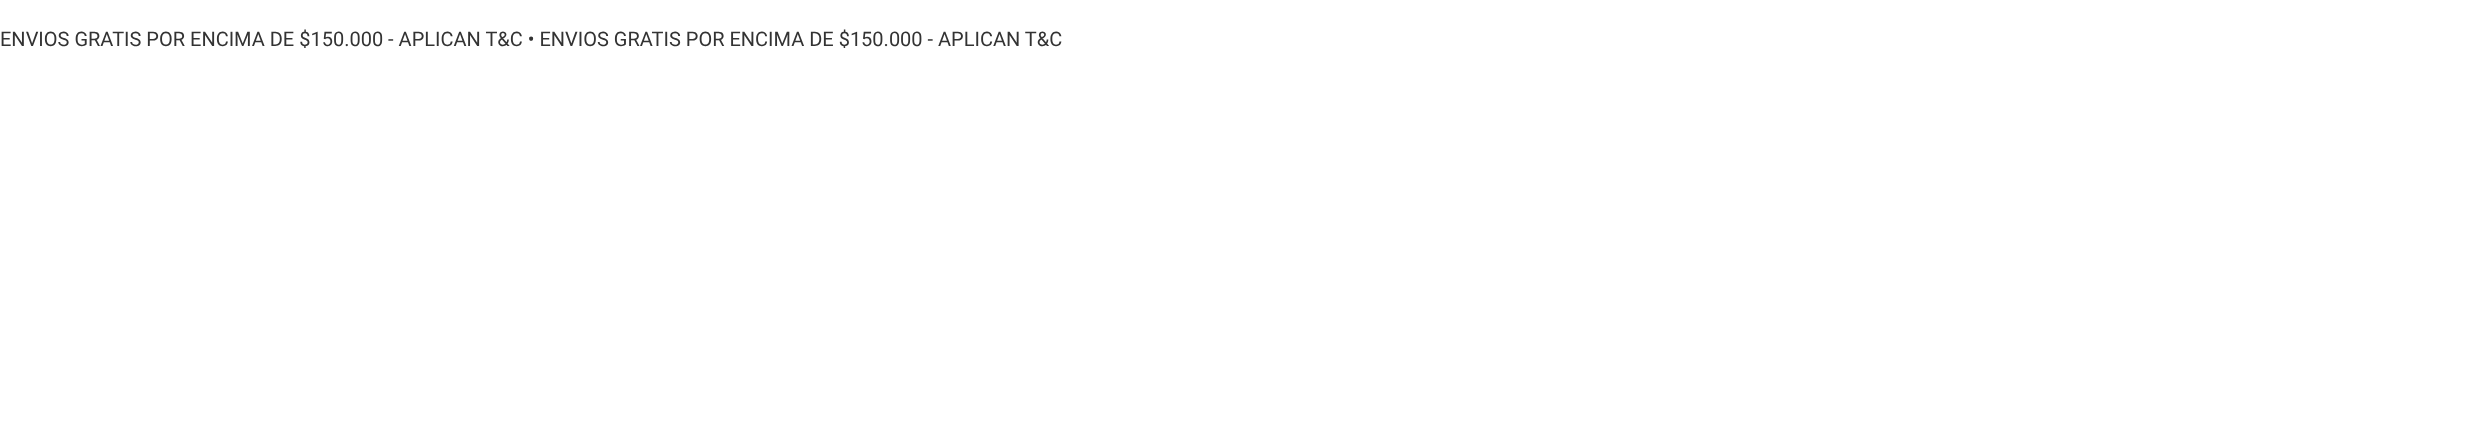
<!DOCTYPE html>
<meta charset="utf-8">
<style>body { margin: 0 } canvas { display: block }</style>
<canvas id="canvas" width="2474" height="437"></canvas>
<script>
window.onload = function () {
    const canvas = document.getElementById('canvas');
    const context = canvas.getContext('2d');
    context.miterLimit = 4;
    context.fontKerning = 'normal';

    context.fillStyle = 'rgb(255, 255, 255)';
    context.fillRect(0, 0, 2474, 437);
    context.font = '20px Roboto';
    context.fillStyle = 'rgb(51, 51, 51)';
    context.fillText('ENVIOS GRATIS POR ENCIMA DE $150.000 - APLICAN T&C • ENVIOS GRATIS POR ENCIMA DE $150.000 - APLICAN T&C', 0, 46);
};
</script>
